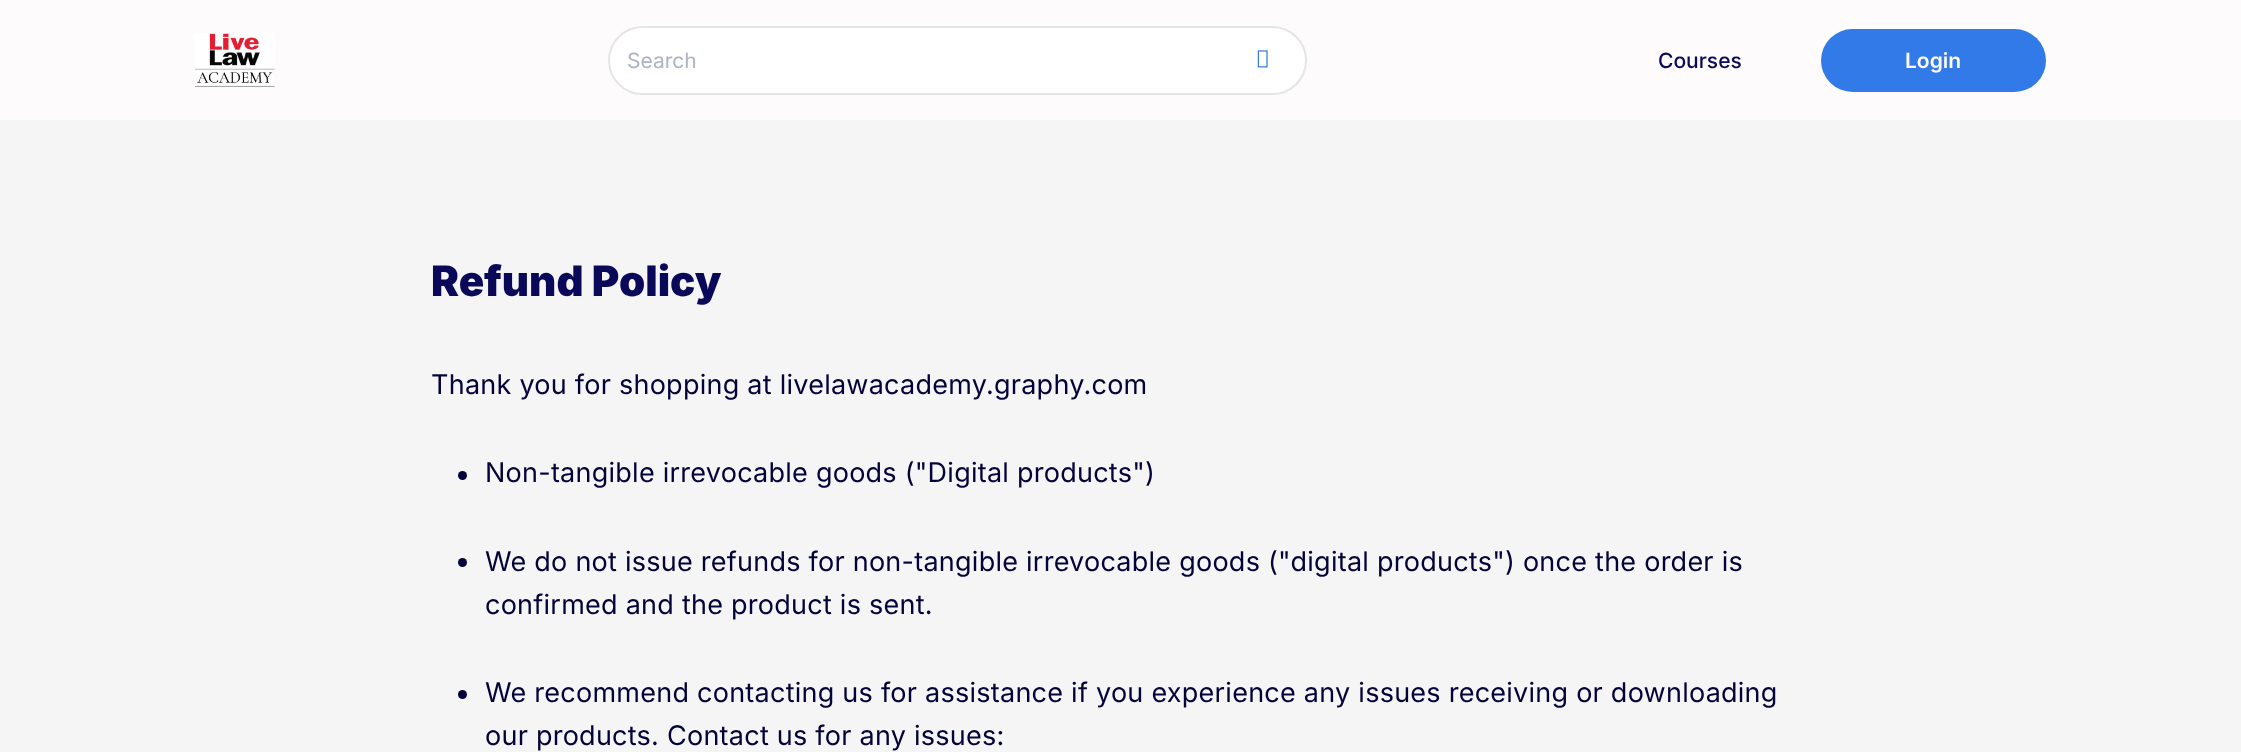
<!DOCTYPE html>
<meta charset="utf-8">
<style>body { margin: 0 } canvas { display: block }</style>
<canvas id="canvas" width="2241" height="752"></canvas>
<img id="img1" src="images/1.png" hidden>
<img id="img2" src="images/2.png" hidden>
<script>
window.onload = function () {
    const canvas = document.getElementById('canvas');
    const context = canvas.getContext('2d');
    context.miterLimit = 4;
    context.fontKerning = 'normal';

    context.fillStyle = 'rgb(253, 251, 251)';
    context.fillRect(0, 0, 2241, 752);
    context.drawImage(document.getElementById('img1'), 195, 33, 80, 54);
    context.fillStyle = 'rgb(255, 255, 255)';
    context.beginPath();
    context.roundRect(609, 27, 697, 67, 33.5);
    context.fill();
    context.strokeStyle = 'rgb(229, 229, 229)';
    context.lineWidth = 2;
    context.stroke();
    context.drawImage(document.getElementById('img2'), 1257, 50, 11, 18);
    context.fillStyle = 'rgb(49, 122, 231)';
    context.beginPath();
    context.roundRect(1821, 29, 225, 63, 31.5);
    context.fill();
    context.fillStyle = 'rgb(245, 245, 245)';
    context.fillRect(0, 120, 2241, 632);
    context.fillStyle = 'rgb(4, 3, 57)';
    context.beginPath();
    context.arc(462.5, 475.5, 4.5, 0, 2 * Math.PI);
    context.fill();
    context.beginPath();
    context.arc(462.5, 562.5, 4.5, 0, 2 * Math.PI);
    context.fill();
    context.beginPath();
    context.arc(462.5, 694.5, 4.5, 0, 2 * Math.PI);
    context.fill();
    context.font = '21px Inter';
    context.fillStyle = 'rgb(172, 179, 194)';
    context.fillText('Search', 627, 68);
    context.font = '500 21px Inter';
    context.fillStyle = 'rgb(10, 9, 89)';
    context.fillText('Courses', 1658, 68);
    context.font = '600 21px Inter';
    context.fillStyle = 'rgb(253, 251, 251)';
    context.fillText('Login', 1905, 68);
    context.font = '900 42px Inter';
    context.fillStyle = 'rgb(10, 9, 89)';
    context.fillText('Refund Policy', 431, 296);
    context.letterSpacing = '0.25px';
    context.font = '27px Inter';
    context.fillStyle = 'rgb(4, 3, 57)';
    context.fillText('Thank you for shopping at livelawacademy.graphy.com', 431, 394);
    context.fillText('Non-tangible irrevocable goods ("Digital products")', 485, 482);
    context.fillText('We do not issue refunds for non-tangible irrevocable goods ("digital products") once the order is', 485, 571);
    context.fillText('confirmed and the product is sent.', 485, 614);
    context.fillText('We recommend contacting us for assistance if you experience any issues receiving or downloading', 485, 702);
    context.fillText('our products. Contact us for any issues:', 485, 745);
};
</script>
